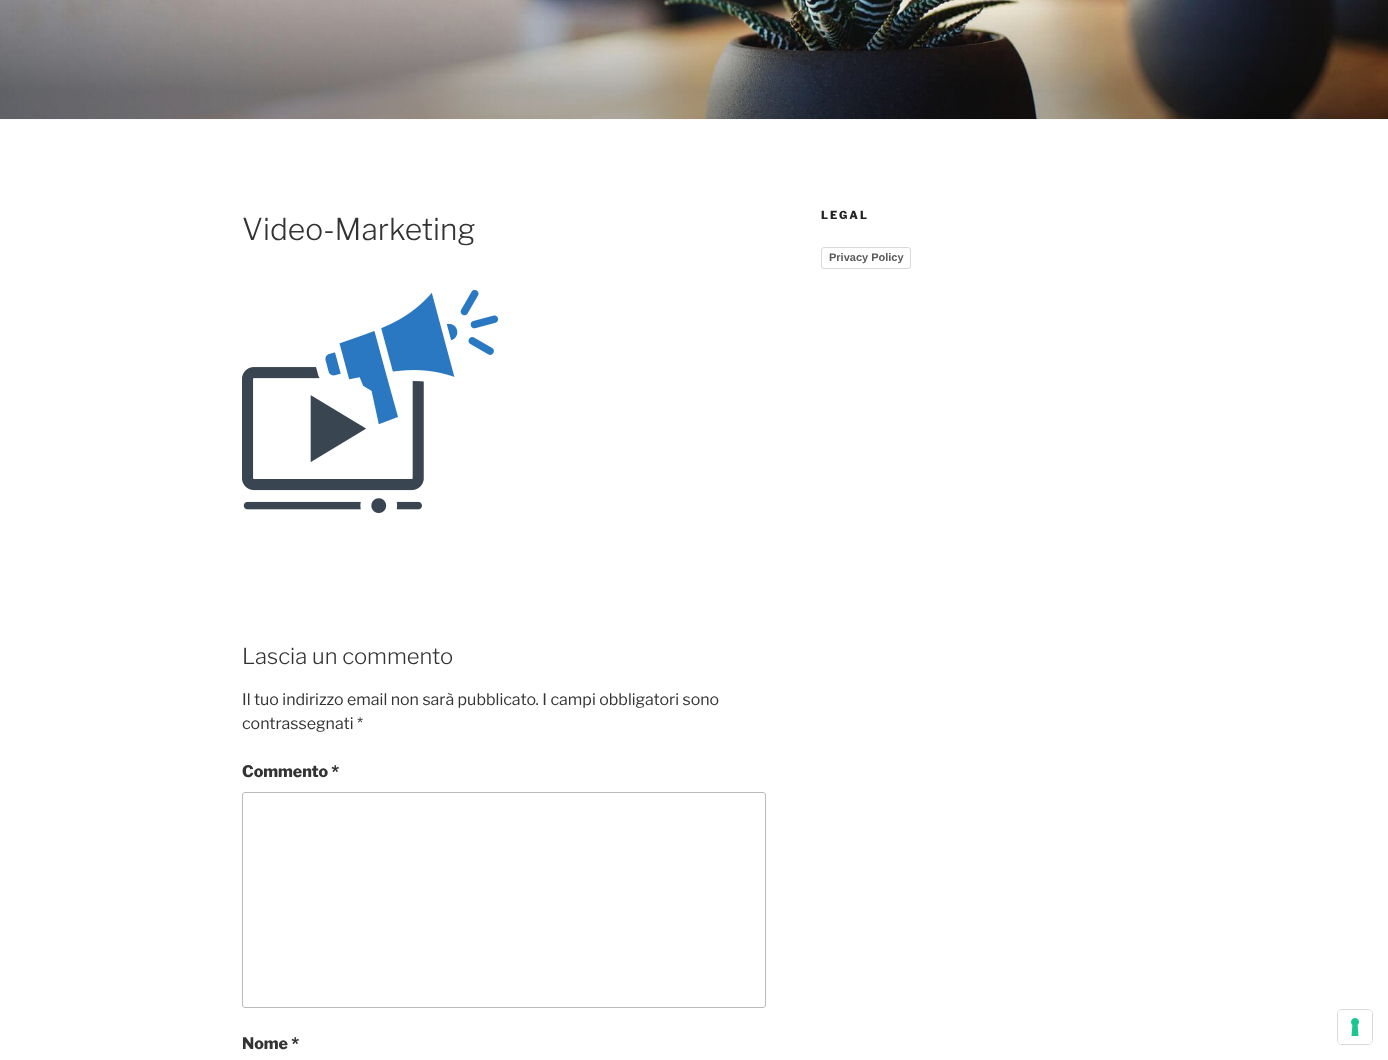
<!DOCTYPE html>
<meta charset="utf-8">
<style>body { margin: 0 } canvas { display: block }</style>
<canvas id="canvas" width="1388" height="1060"></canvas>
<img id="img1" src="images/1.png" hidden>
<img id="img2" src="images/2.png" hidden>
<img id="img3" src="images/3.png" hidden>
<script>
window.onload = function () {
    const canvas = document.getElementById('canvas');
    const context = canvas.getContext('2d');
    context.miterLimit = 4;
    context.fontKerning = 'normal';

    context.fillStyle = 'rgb(255, 255, 255)';
    context.fillRect(0, 0, 1388, 1060);
    context.fillStyle = 'rgb(250, 250, 250)';
    context.fillRect(0, 119, 1388, 1);
    context.drawImage(document.getElementById('img1'), 0, 0, 1388, 119);
    context.drawImage(document.getElementById('img2'), 242, 290, 256, 223);
    context.beginPath();
    context.roundRect(242.5, 792.5, 523, 215, 2.5);
    context.strokeStyle = 'rgb(187, 187, 187)';
    context.stroke();
    context.fillStyle = 'rgba(0, 0, 0, 0.15)';
    context.filter = 'blur(0.5px)';
    context.beginPath();
    context.roundRect(822, 249, 88, 20, 2);
    context.fill();
    context.filter = 'none';
    context.fillStyle = 'rgb(255, 255, 255)';
    context.beginPath();
    context.roundRect(821, 247, 90, 22, 3);
    context.fill();
    context.beginPath();
    context.roundRect(821.5, 247.5, 89, 21, 2.5);
    context.strokeStyle = 'rgba(0, 0, 0, 0.15)';
    context.stroke();
    context.beginPath();
    context.roundRect(1337.5, 1009.5, 35, 35, 4.5);
    context.strokeStyle = 'rgb(217, 217, 217)';
    context.stroke();
    context.beginPath();
    context.roundRect(1338, 1010, 34, 34, 4);
    context.fill();
    context.drawImage(document.getElementById('img3'), 1351, 1018, 8, 18);
    context.font = '100 30px Libre Franklin';
    context.fillStyle = 'rgb(51, 51, 51)';
    context.fillText('Video-Marketing', 242, 240);
    context.font = '100 22px Libre Franklin';
    context.fillText('Lascia un commento', 242, 664);
    context.font = '100 16px "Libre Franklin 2"';
    context.fillText('Il tuo indirizzo email non sarà pubblicato. I campi obbligatori sono', 242, 705);
    context.fillText('contrassegnati *', 242, 729);
    context.font = '100 16px "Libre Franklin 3"';
    context.fillText('Commento *', 242, 777);
    context.fillText('Nome *', 242, 1049);
    context.letterSpacing = '2px';
    context.font = '100 11px "Libre Franklin 3"';
    context.fillStyle = 'rgb(34, 34, 34)';
    context.fillText('LEGAL', 821, 219);
    context.letterSpacing = '0px';
    context.font = 'bold 11px Liberation Sans';
    context.fillStyle = 'rgb(89, 89, 89)';
    context.fillText('Privacy Policy', 829, 261);
};
</script>
